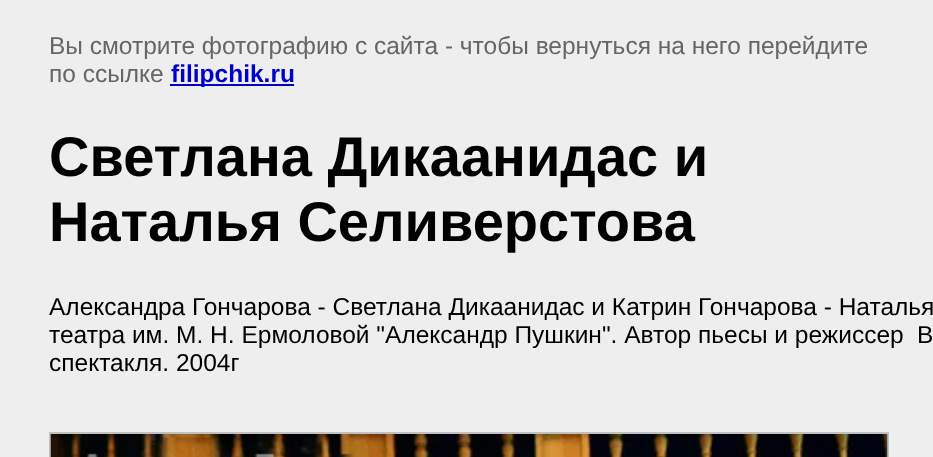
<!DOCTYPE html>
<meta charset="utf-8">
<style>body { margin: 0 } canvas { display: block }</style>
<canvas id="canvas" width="933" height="457"></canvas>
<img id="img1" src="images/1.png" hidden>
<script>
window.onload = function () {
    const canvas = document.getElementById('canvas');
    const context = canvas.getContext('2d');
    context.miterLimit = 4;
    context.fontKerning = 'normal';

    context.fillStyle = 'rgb(238, 238, 238)';
    context.fillRect(0, 0, 933, 457);
    context.fillStyle = 'rgb(0, 0, 204)';
    context.fillRect(170, 84, 124, 2);
    context.strokeStyle = 'rgb(192, 192, 192)';
    context.lineWidth = 2;
    context.strokeRect(50, 433, 838, 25);
    context.drawImage(document.getElementById('img1'), 50, 434, 838, 23);
    context.font = '24.5px Liberation Sans';
    context.fillStyle = 'rgb(102, 102, 102)';
    context.fillText('Вы смотрите фотографию с сайта - чтобы вернуться на него перейдите', 49, 54);
    context.fillText('по ссылке', 49, 82);
    context.font = 'bold 24.5px Liberation Sans';
    context.fillStyle = 'rgb(0, 0, 204)';
    context.fillText('filipchik.ru', 171, 82);
    context.font = 'bold 56px Liberation Sans';
    context.fillStyle = 'rgb(0, 0, 0)';
    context.fillText('Светлана Дикаанидас и', 49, 176);
    context.fillText('Наталья Селиверстова', 49, 241);
    context.font = '24.5px Liberation Sans';
    context.fillText('Александра Гончарова - Светлана Дикаанидас и Катрин Гончарова - Наталья', 49, 315);
    context.fillText('театра им. М. Н. Ермоловой "Александр Пушкин". Автор пьесы и режиссер', 49, 343);
    context.fillText('В', 917, 343);
    context.fillText('спектакля. 2004г', 49, 371);
};
</script>
